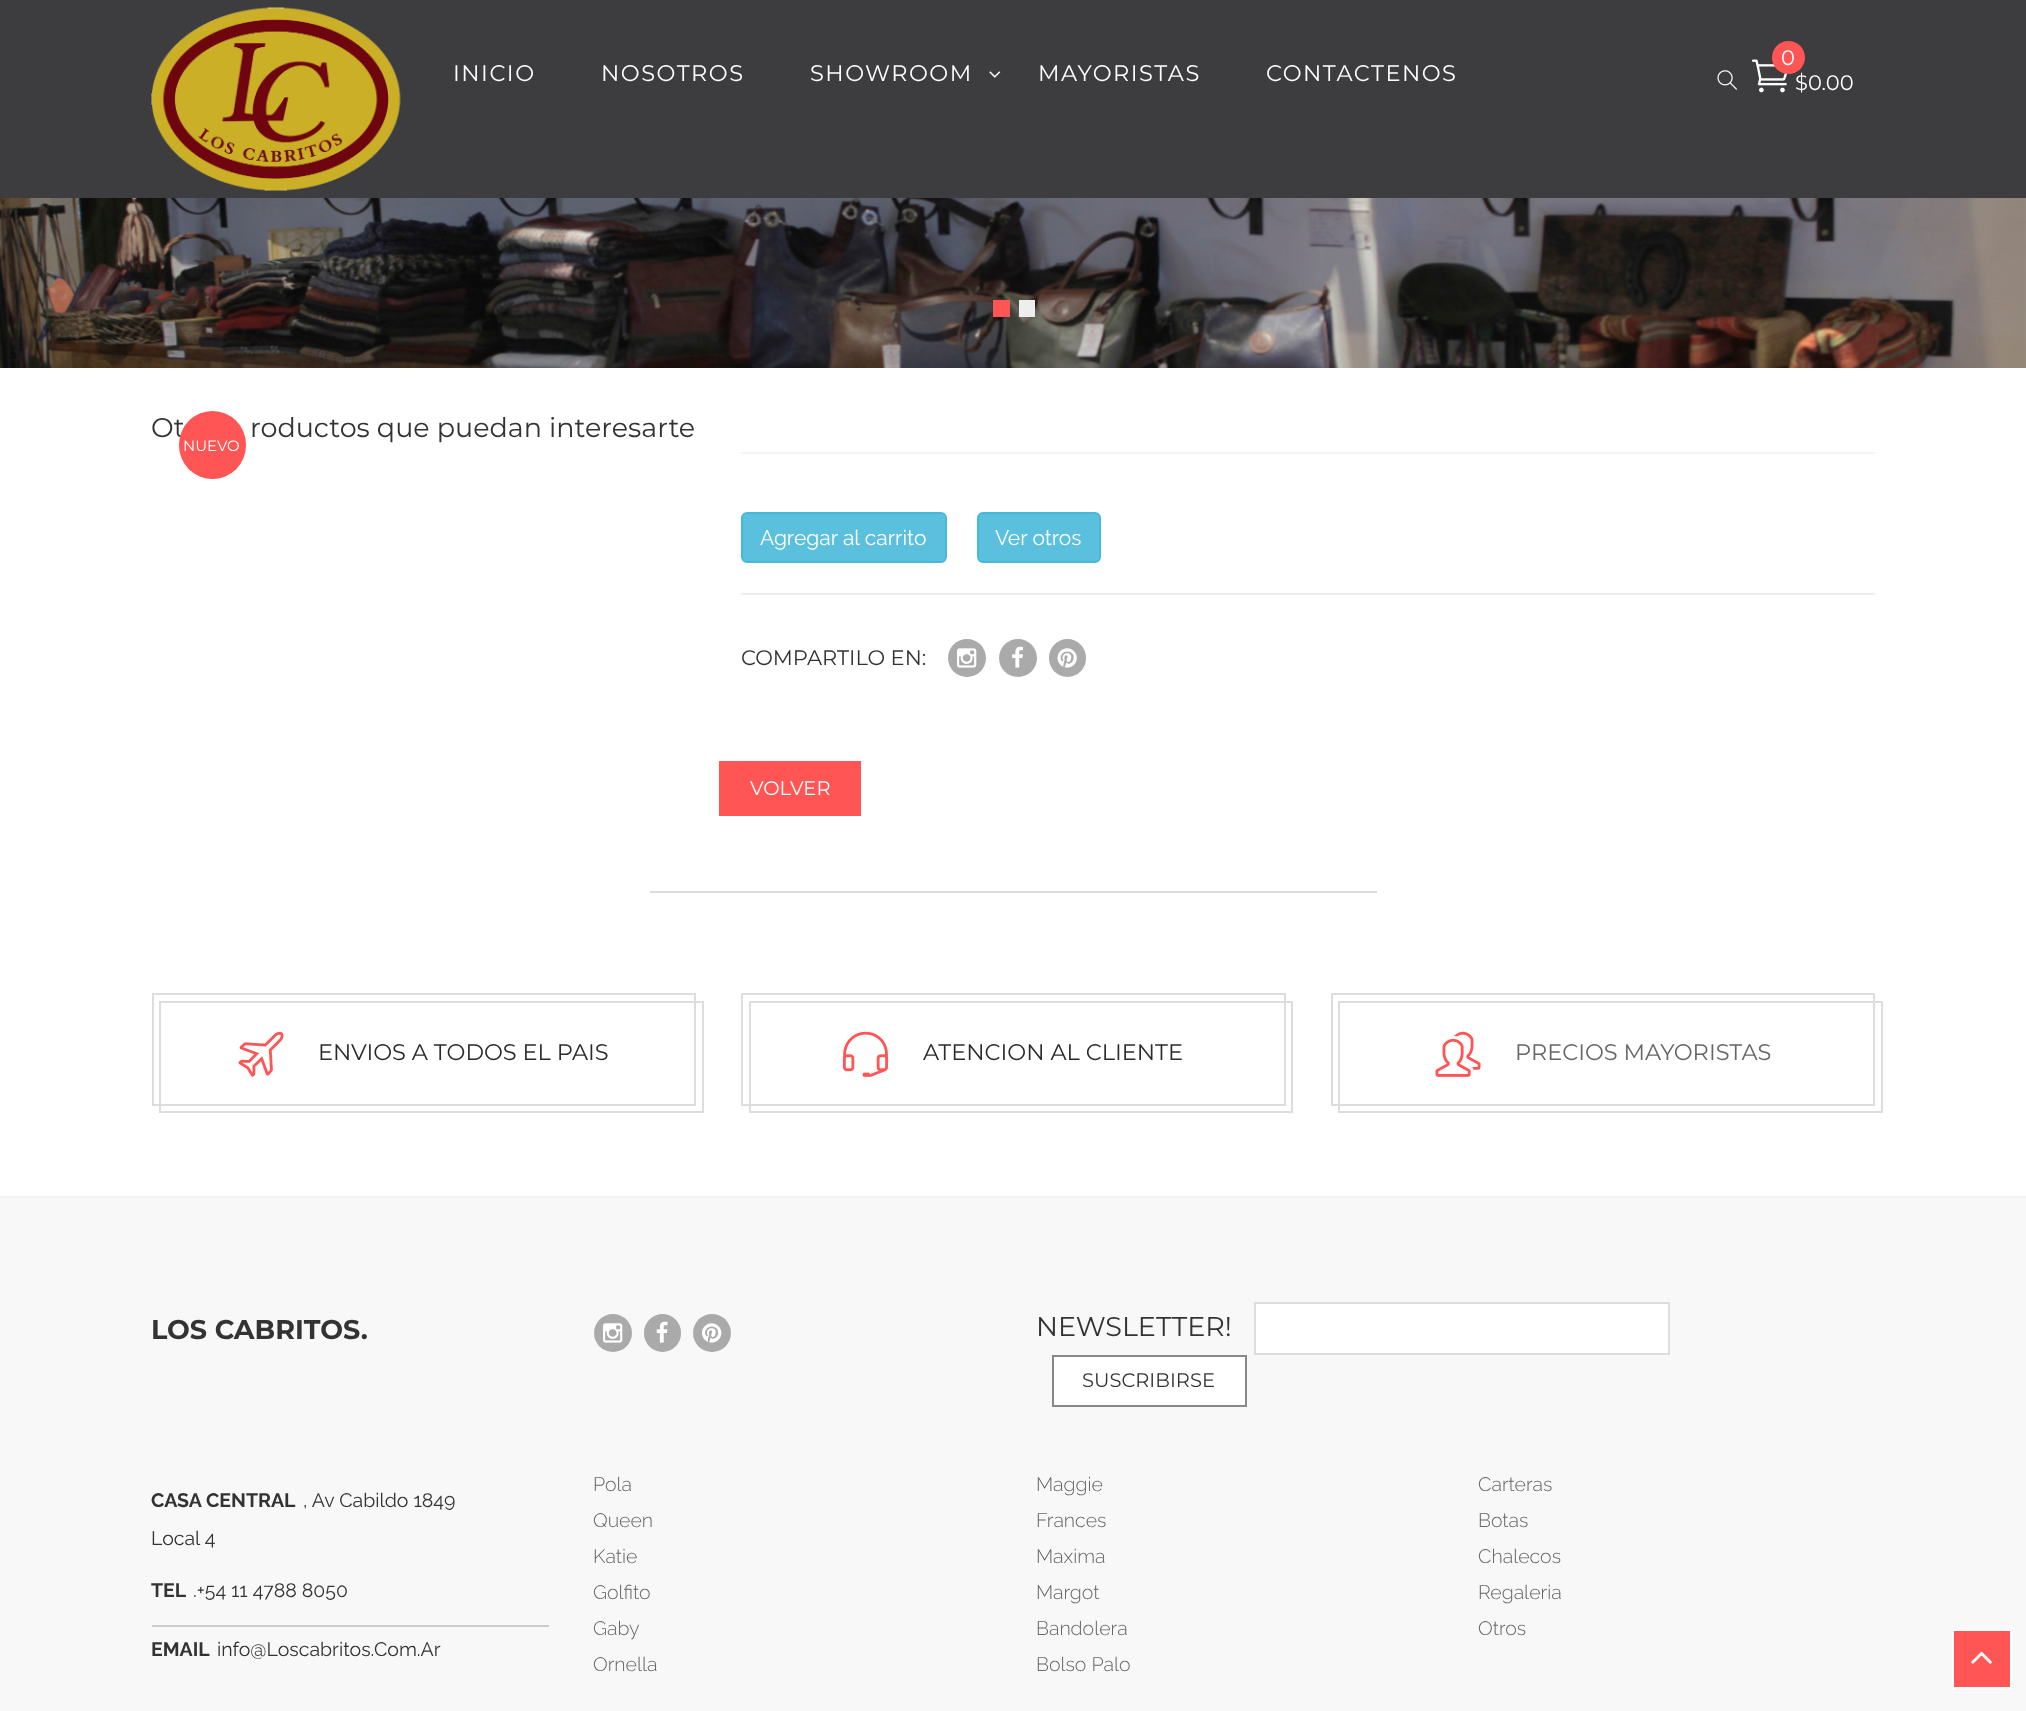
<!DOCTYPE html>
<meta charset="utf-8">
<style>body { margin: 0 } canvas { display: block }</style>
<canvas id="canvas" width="2026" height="1711"></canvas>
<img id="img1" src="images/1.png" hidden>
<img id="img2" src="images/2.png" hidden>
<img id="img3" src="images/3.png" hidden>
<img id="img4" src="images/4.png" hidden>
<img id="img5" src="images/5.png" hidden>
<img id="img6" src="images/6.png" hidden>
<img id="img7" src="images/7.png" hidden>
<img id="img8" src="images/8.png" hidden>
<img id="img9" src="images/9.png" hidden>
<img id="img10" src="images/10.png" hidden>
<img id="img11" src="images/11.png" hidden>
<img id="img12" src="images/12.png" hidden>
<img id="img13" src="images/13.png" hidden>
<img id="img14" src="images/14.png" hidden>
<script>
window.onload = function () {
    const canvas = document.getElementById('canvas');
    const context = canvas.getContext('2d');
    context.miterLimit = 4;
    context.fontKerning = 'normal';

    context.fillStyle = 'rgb(255, 255, 255)';
    context.fillRect(0, 0, 2026, 1711);
    context.fillStyle = 'rgb(61, 60, 63)';
    context.fillRect(0, 0, 2026, 198);
    context.drawImage(document.getElementById('img1'), 151, 7, 250, 184);
    context.drawImage(document.getElementById('img2'), 989, 71, 12, 7);
    context.drawImage(document.getElementById('img3'), 1717, 70, 20, 20);
    context.drawImage(document.getElementById('img4'), 1751, 59, 37, 34);
    context.drawImage(document.getElementById('img5'), 0, 198, 2026, 170);
    context.fillStyle = 'rgb(255, 85, 85)';
    context.fillRect(993, 300, 17, 17);
    context.fillStyle = 'rgb(238, 238, 238)';
    context.fillRect(1019, 300, 16, 17);
    context.fillStyle = 'rgb(244, 244, 244)';
    context.fillRect(741, 452, 1134, 2);
    context.fillStyle = 'rgb(91, 192, 222)';
    context.beginPath();
    context.roundRect(742, 513, 204, 49, 5);
    context.fill();
    context.strokeStyle = 'rgb(70, 184, 218)';
    context.lineWidth = 2;
    context.stroke();
    context.beginPath();
    context.roundRect(978, 513, 122, 49, 5);
    context.fill();
    context.stroke();
    context.fillStyle = 'rgb(238, 238, 238)';
    context.fillRect(741, 593, 1134, 2);
    context.fillStyle = 'rgb(170, 170, 170)';
    context.beginPath();
    context.arc(967, 658, 19, 0, 2 * Math.PI);
    context.fill();
    context.drawImage(document.getElementById('img6'), 957, 648, 20, 20);
    context.beginPath();
    context.arc(1018, 658, 19, 0, 2 * Math.PI);
    context.fill();
    context.drawImage(document.getElementById('img7'), 1012, 646, 11, 22);
    context.beginPath();
    context.roundRect(1049, 639, 37, 38, 18.5);
    context.fill();
    context.drawImage(document.getElementById('img8'), 1057, 648, 20, 20);
    context.fillStyle = 'rgb(255, 85, 85)';
    context.fillRect(719, 761, 142, 55);
    context.fillStyle = 'rgb(221, 221, 221)';
    context.fillRect(650, 891, 727, 2);
    context.strokeStyle = 'rgb(221, 221, 221)';
    context.strokeRect(153, 994, 542, 111);
    context.strokeRect(160, 1002, 543, 110);
    context.drawImage(document.getElementById('img9'), 238, 1031, 46, 46);
    context.strokeRect(742, 994, 543, 111);
    context.strokeRect(750, 1002, 542, 110);
    context.drawImage(document.getElementById('img10'), 843, 1031, 45, 46);
    context.strokeRect(1332, 994, 542, 111);
    context.strokeRect(1339, 1002, 543, 110);
    context.drawImage(document.getElementById('img11'), 1435, 1031, 46, 46);
    context.fillStyle = 'rgb(248, 248, 248)';
    context.fillRect(0, 1198, 2026, 513);
    context.fillStyle = 'rgb(241, 241, 241)';
    context.fillRect(0, 1196, 2026, 2);
    context.fillStyle = 'rgb(170, 170, 170)';
    context.beginPath();
    context.arc(613, 1333, 19, 0, 2 * Math.PI);
    context.fill();
    context.drawImage(document.getElementById('img6'), 603, 1323, 20, 20);
    context.beginPath();
    context.roundRect(644, 1314, 37, 38, 18.5);
    context.fill();
    context.drawImage(document.getElementById('img12'), 656, 1321, 12, 22);
    context.beginPath();
    context.arc(712, 1333, 19, 0, 2 * Math.PI);
    context.fill();
    context.drawImage(document.getElementById('img13'), 702, 1323, 20, 20);
    context.fillStyle = 'rgb(255, 255, 255)';
    context.beginPath();
    context.rect(1255, 1303, 414, 51);
    context.fill();
    context.stroke();
    context.beginPath();
    context.rect(1053, 1356, 193, 50);
    context.fill();
    context.strokeStyle = 'rgb(136, 136, 136)';
    context.stroke();
    context.fillStyle = 'rgb(204, 204, 204)';
    context.fillRect(152, 1625, 397, 2);
    context.fillStyle = 'rgb(255, 85, 85)';
    context.beginPath();
    context.rect(1953, 1630, 58, 58);
    context.fill();
    context.strokeStyle = 'rgb(255, 255, 255)';
    context.stroke();
    context.drawImage(document.getElementById('img14'), 1971, 1651, 21, 13);
    context.letterSpacing = '1.5px';
    context.font = '22.5px Montserrat';
    context.fillStyle = 'rgb(255, 255, 255)';
    context.fillText('INICIO', 453, 81);
    context.fillText('NOSOTROS', 601, 81);
    context.fillText('SHOWROOM', 810, 81);
    context.fillText('MAYORISTAS', 1038, 81);
    context.fillText('CONTACTENOS', 1266, 81);
    context.letterSpacing = '0px';
    context.font = '21px Montserrat';
    context.fillText('$0.00', 1795, 90);
    context.fillStyle = 'rgb(255, 85, 85)';
    context.beginPath();
    context.arc(1788.5, 57.5, 16.5, 0, 2 * Math.PI);
    context.fill();
    context.fillStyle = 'rgb(255, 255, 255)';
    context.fillText('0', 1781, 65);
    context.font = '27px Montserrat';
    context.fillStyle = 'rgb(51, 51, 51)';
    context.fillText('Ot', 151, 437);
    context.fillText('roductos que puedan interesarte', 250, 437);
    context.fillStyle = 'rgb(255, 85, 85)';
    context.beginPath();
    context.roundRect(179, 411, 67, 68, 33.5);
    context.fill();
    context.font = '15px Montserrat';
    context.fillStyle = 'rgb(255, 255, 255)';
    context.fillText('NUEVO', 183, 451);
    context.font = '21px Raleway';
    context.fillText('Agregar al carrito', 760, 545);
    context.fillText('Ver otros', 995, 545);
    context.font = '21px Montserrat';
    context.fillStyle = 'rgb(51, 51, 51)';
    context.fillText('COMPARTILO EN:', 741, 665);
    context.font = '19.5px Montserrat';
    context.fillStyle = 'rgb(255, 255, 255)';
    context.fillText('VOLVER', 750, 795);
    context.font = '22.5px Montserrat';
    context.fillStyle = 'rgb(42, 42, 42)';
    context.fillText('ENVIOS A TODOS EL PAIS', 318, 1060);
    context.fillText('ATENCION AL CLIENTE', 923, 1060);
    context.fillStyle = 'rgb(102, 102, 102)';
    context.fillText('PRECIOS MAYORISTAS', 1515, 1060);
    context.font = 'bold 27px Montserrat';
    context.fillStyle = 'rgb(51, 51, 51)';
    context.fillText('LOS CABRITOS.', 151, 1339);
    context.font = '27px Montserrat';
    context.fillText('NEWSLETTER!', 1036, 1336);
    context.font = '19.5px Montserrat';
    context.fillText('SUSCRIBIRSE', 1082, 1387);
    context.font = 'bold 19.5px Raleway';
    context.fillText('CASA CENTRAL', 151, 1507);
    context.font = '19.5px Raleway';
    context.fillText(', Av Cabildo 1849', 303, 1507);
    context.fillText('Local 4', 151, 1545);
    context.font = 'bold 19.5px Raleway';
    context.fillText('TEL', 151, 1597);
    context.font = '19.5px Raleway';
    context.fillText('.+54 11 4788 8050', 193, 1597);
    context.font = 'bold 19.5px Raleway';
    context.fillText('EMAIL', 151, 1656);
    context.font = '19.5px Raleway';
    context.fillText('info@Loscabritos.Com.Ar', 217, 1656);
    context.font = '300 19.5px Raleway';
    context.fillStyle = 'rgb(102, 102, 102)';
    context.fillText('Pola', 593, 1491);
    context.fillText('Queen', 593, 1527);
    context.fillText('Katie', 593, 1563);
    context.fillText('Golfito', 593, 1599);
    context.fillText('Gaby', 593, 1635);
    context.fillText('Ornella', 593, 1671);
    context.fillText('Maggie', 1036, 1491);
    context.fillText('Frances', 1036, 1527);
    context.fillText('Maxima', 1036, 1563);
    context.fillText('Margot', 1036, 1599);
    context.fillText('Bandolera', 1036, 1635);
    context.fillText('Bolso Palo', 1036, 1671);
    context.fillText('Carteras', 1478, 1491);
    context.fillText('Botas', 1478, 1527);
    context.fillText('Chalecos', 1478, 1563);
    context.fillText('Regaleria', 1478, 1599);
    context.fillText('Otros', 1478, 1635);
};
</script>
